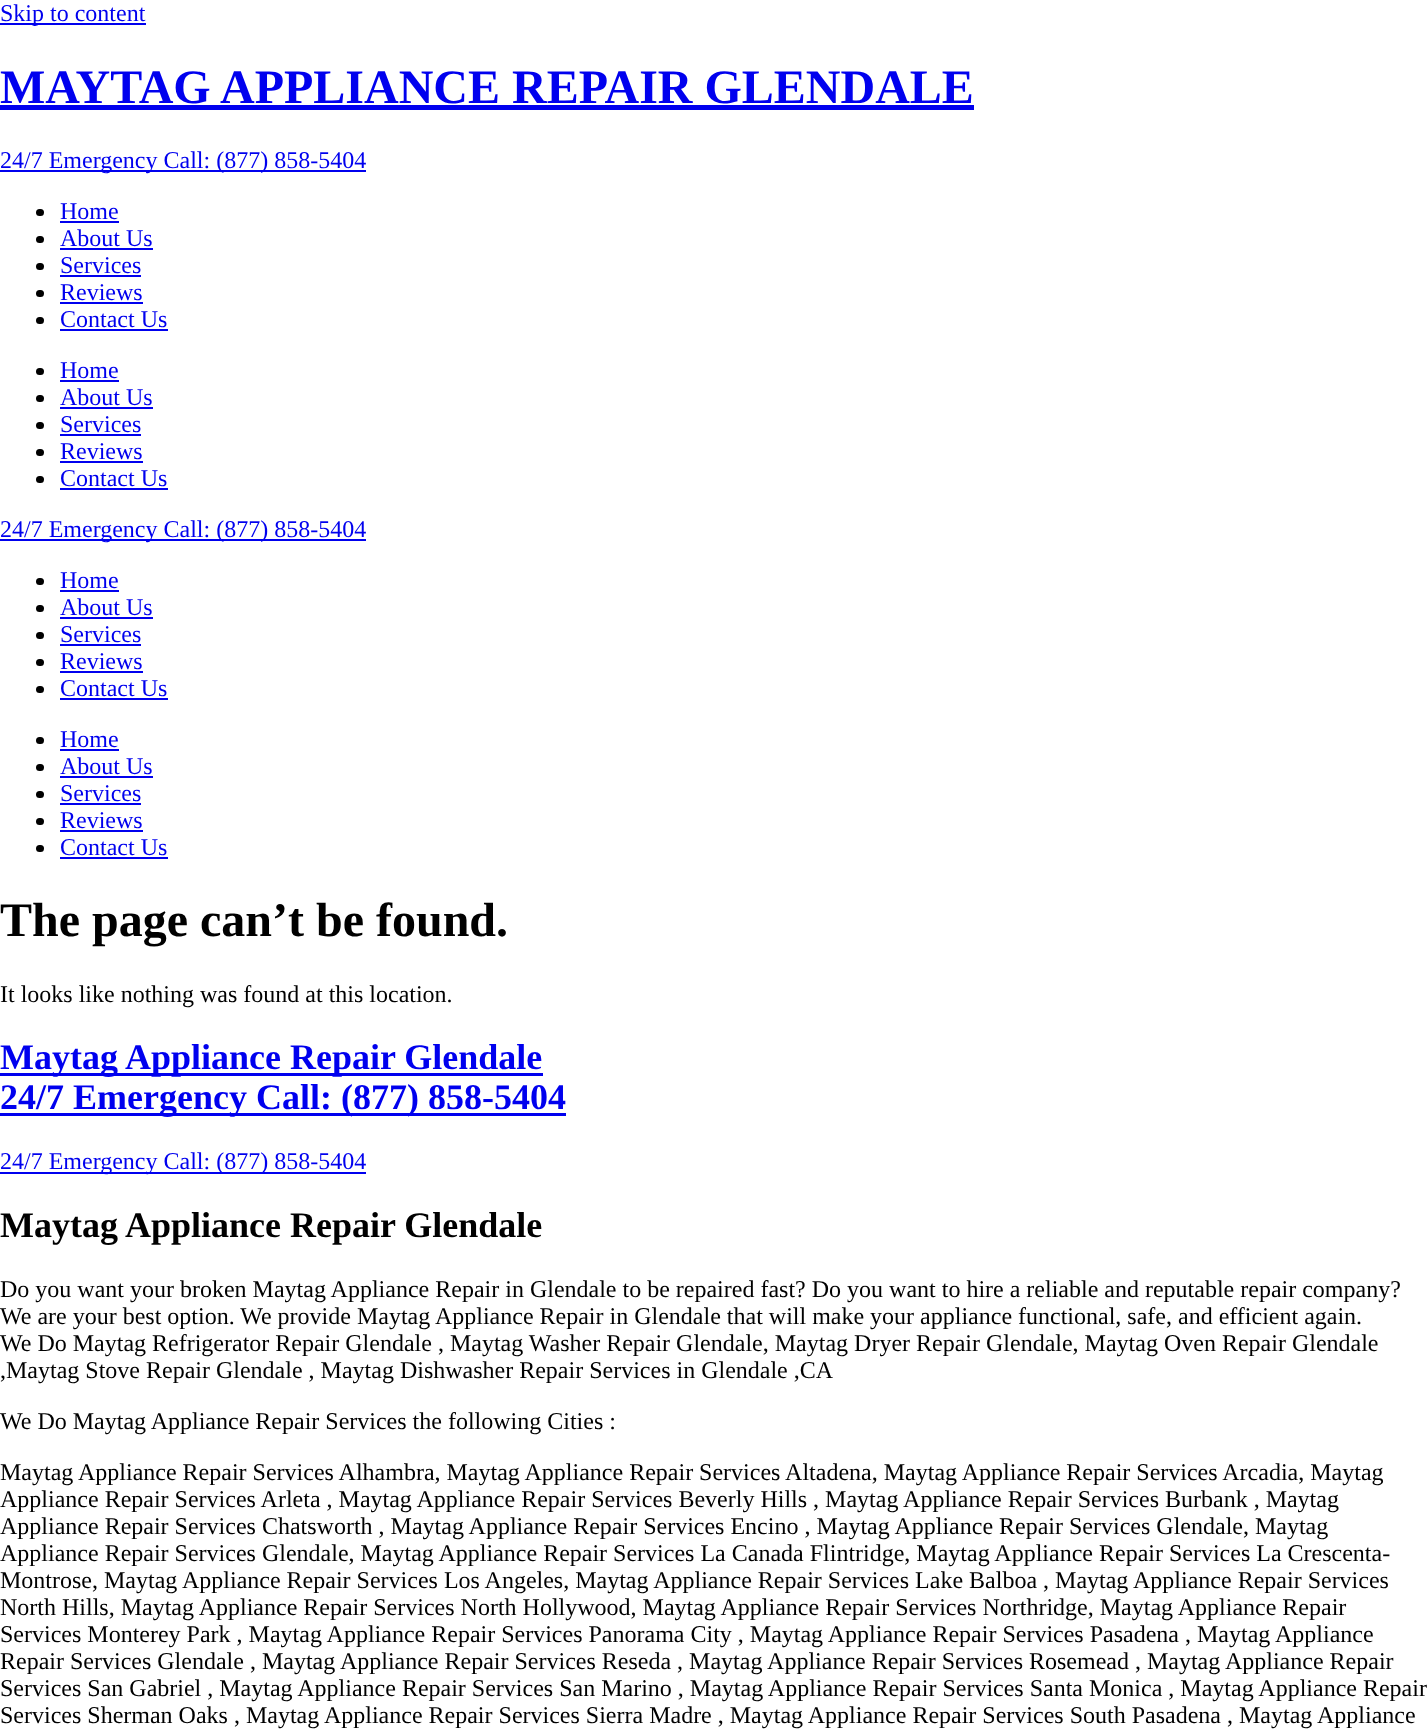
<!DOCTYPE html>
<meta charset="utf-8">
<style>body { margin: 0 } canvas { display: block }</style>
<canvas id="canvas" width="1428" height="1729"></canvas>
<script>
window.onload = function () {
    const canvas = document.getElementById('canvas');
    const context = canvas.getContext('2d');
    context.miterLimit = 4;
    context.fontKerning = 'normal';

    context.fillStyle = 'rgb(255, 255, 255)';
    context.fillRect(0, 0, 1428, 1729);
    context.fillStyle = 'rgb(0, 0, 238)';
    context.fillRect(0, 23, 146, 2);
    context.fillRect(0, 105, 974, 5);
    context.fillRect(0, 170, 366, 2);
    context.fillStyle = 'rgb(0, 0, 0)';
    context.beginPath();
    context.roundRect(36, 209, 8, 7, 3.5);
    context.fill();
    context.fillStyle = 'rgb(0, 0, 238)';
    context.fillRect(60, 221, 59, 2);
    context.fillStyle = 'rgb(0, 0, 0)';
    context.beginPath();
    context.roundRect(36, 236, 8, 7, 3.5);
    context.fill();
    context.fillStyle = 'rgb(0, 0, 238)';
    context.fillRect(60, 248, 93, 2);
    context.fillStyle = 'rgb(0, 0, 0)';
    context.beginPath();
    context.roundRect(36, 263, 8, 7, 3.5);
    context.fill();
    context.fillStyle = 'rgb(0, 0, 238)';
    context.fillRect(60, 275, 81, 2);
    context.fillStyle = 'rgb(0, 0, 0)';
    context.beginPath();
    context.roundRect(36, 290, 8, 7, 3.5);
    context.fill();
    context.fillStyle = 'rgb(0, 0, 238)';
    context.fillRect(60, 302, 83, 2);
    context.fillStyle = 'rgb(0, 0, 0)';
    context.beginPath();
    context.roundRect(36, 317, 8, 7, 3.5);
    context.fill();
    context.fillStyle = 'rgb(0, 0, 238)';
    context.fillRect(60, 329, 108, 2);
    context.fillStyle = 'rgb(0, 0, 0)';
    context.beginPath();
    context.roundRect(36, 368, 8, 7, 3.5);
    context.fill();
    context.fillStyle = 'rgb(0, 0, 238)';
    context.fillRect(60, 380, 59, 2);
    context.fillStyle = 'rgb(0, 0, 0)';
    context.beginPath();
    context.roundRect(36, 395, 8, 7, 3.5);
    context.fill();
    context.fillStyle = 'rgb(0, 0, 238)';
    context.fillRect(60, 407, 93, 2);
    context.fillStyle = 'rgb(0, 0, 0)';
    context.beginPath();
    context.roundRect(36, 422, 8, 7, 3.5);
    context.fill();
    context.fillStyle = 'rgb(0, 0, 238)';
    context.fillRect(60, 434, 81, 2);
    context.fillStyle = 'rgb(0, 0, 0)';
    context.beginPath();
    context.roundRect(36, 449, 8, 7, 3.5);
    context.fill();
    context.fillStyle = 'rgb(0, 0, 238)';
    context.fillRect(60, 461, 83, 2);
    context.fillStyle = 'rgb(0, 0, 0)';
    context.beginPath();
    context.roundRect(36, 476, 8, 7, 3.5);
    context.fill();
    context.fillStyle = 'rgb(0, 0, 238)';
    context.fillRect(60, 488, 108, 2);
    context.fillRect(0, 539, 366, 2);
    context.fillStyle = 'rgb(0, 0, 0)';
    context.beginPath();
    context.roundRect(36, 578, 8, 7, 3.5);
    context.fill();
    context.fillStyle = 'rgb(0, 0, 238)';
    context.fillRect(60, 590, 59, 2);
    context.fillStyle = 'rgb(0, 0, 0)';
    context.beginPath();
    context.roundRect(36, 605, 8, 7, 3.5);
    context.fill();
    context.fillStyle = 'rgb(0, 0, 238)';
    context.fillRect(60, 617, 93, 2);
    context.fillStyle = 'rgb(0, 0, 0)';
    context.beginPath();
    context.roundRect(36, 632, 8, 7, 3.5);
    context.fill();
    context.fillStyle = 'rgb(0, 0, 238)';
    context.fillRect(60, 644, 81, 2);
    context.fillStyle = 'rgb(0, 0, 0)';
    context.beginPath();
    context.roundRect(36, 659, 8, 7, 3.5);
    context.fill();
    context.fillStyle = 'rgb(0, 0, 238)';
    context.fillRect(60, 671, 83, 2);
    context.fillStyle = 'rgb(0, 0, 0)';
    context.beginPath();
    context.roundRect(36, 686, 8, 7, 3.5);
    context.fill();
    context.fillStyle = 'rgb(0, 0, 238)';
    context.fillRect(60, 698, 108, 2);
    context.fillStyle = 'rgb(0, 0, 0)';
    context.beginPath();
    context.roundRect(36, 737, 8, 7, 3.5);
    context.fill();
    context.fillStyle = 'rgb(0, 0, 238)';
    context.fillRect(60, 749, 59, 2);
    context.fillStyle = 'rgb(0, 0, 0)';
    context.beginPath();
    context.roundRect(36, 764, 8, 7, 3.5);
    context.fill();
    context.fillStyle = 'rgb(0, 0, 238)';
    context.fillRect(60, 776, 93, 2);
    context.fillStyle = 'rgb(0, 0, 0)';
    context.beginPath();
    context.roundRect(36, 791, 8, 7, 3.5);
    context.fill();
    context.fillStyle = 'rgb(0, 0, 238)';
    context.fillRect(60, 803, 81, 2);
    context.fillStyle = 'rgb(0, 0, 0)';
    context.beginPath();
    context.roundRect(36, 818, 8, 7, 3.5);
    context.fill();
    context.fillStyle = 'rgb(0, 0, 238)';
    context.fillRect(60, 830, 83, 2);
    context.fillStyle = 'rgb(0, 0, 0)';
    context.beginPath();
    context.roundRect(36, 845, 8, 7, 3.5);
    context.fill();
    context.fillStyle = 'rgb(0, 0, 238)';
    context.fillRect(60, 857, 108, 2);
    context.fillRect(0, 1073, 543, 3);
    context.fillRect(0, 1113, 566, 3);
    context.fillRect(0, 1172, 366, 2);
    context.font = '24px Liberation Serif';
    context.fillText('Skip to content', 0, 21);
    context.font = 'bold 48px Liberation Serif';
    context.fillText('MAYTAG APPLIANCE REPAIR GLENDALE', 0, 103);
    context.font = '24px Liberation Serif';
    context.fillText('24/7 Emergency Call: (877) 858-5404', 0, 168);
    context.fillText('Home', 60, 219);
    context.fillText('About Us', 60, 246);
    context.fillText('Services', 60, 273);
    context.fillText('Reviews', 60, 300);
    context.fillText('Contact Us', 60, 327);
    context.fillText('Home', 60, 378);
    context.fillText('About Us', 60, 405);
    context.fillText('Services', 60, 432);
    context.fillText('Reviews', 60, 459);
    context.fillText('Contact Us', 60, 486);
    context.fillText('24/7 Emergency Call: (877) 858-5404', 0, 537);
    context.fillText('Home', 60, 588);
    context.fillText('About Us', 60, 615);
    context.fillText('Services', 60, 642);
    context.fillText('Reviews', 60, 669);
    context.fillText('Contact Us', 60, 696);
    context.fillText('Home', 60, 747);
    context.fillText('About Us', 60, 774);
    context.fillText('Services', 60, 801);
    context.fillText('Reviews', 60, 828);
    context.fillText('Contact Us', 60, 855);
    context.font = 'bold 48px Liberation Serif';
    context.fillStyle = 'rgb(0, 0, 0)';
    context.fillText('The page can’t be found.', 0, 936);
    context.font = '24px Liberation Serif';
    context.fillText('It looks like nothing was found at this location.', 0, 1002);
    context.font = 'bold 36px Liberation Serif';
    context.fillStyle = 'rgb(0, 0, 238)';
    context.fillText('Maytag Appliance Repair Glendale', 0, 1069);
    context.fillText('24/7 Emergency Call: (877) 858-5404', 0, 1109);
    context.font = '24px Liberation Serif';
    context.fillText('24/7 Emergency Call: (877) 858-5404', 0, 1169);
    context.font = 'bold 36px Liberation Serif';
    context.fillStyle = 'rgb(0, 0, 0)';
    context.fillText('Maytag Appliance Repair Glendale', 0, 1237);
    context.font = '24px Liberation Serif';
    context.fillText('Do you want your broken Maytag Appliance Repair in Glendale to be repaired fast? Do you want to hire a reliable and reputable repair company?', 0, 1297);
    context.fillText('We are your best option. We provide Maytag Appliance Repair in Glendale that will make your appliance functional, safe, and efficient again.', 0, 1324);
    context.fillText('We Do Maytag Refrigerator Repair Glendale , Maytag Washer Repair Glendale, Maytag Dryer Repair Glendale, Maytag Oven Repair Glendale', 0, 1351);
    context.fillText(',Maytag Stove Repair Glendale , Maytag Dishwasher Repair Services in Glendale ,CA', 0, 1378);
    context.fillText('We Do Maytag Appliance Repair Services the following Cities :', 0, 1429);
    context.fillText('Maytag Appliance Repair Services Alhambra, Maytag Appliance Repair Services Altadena, Maytag Appliance Repair Services Arcadia, Maytag', 0, 1480);
    context.fillText('Appliance Repair Services Arleta , Maytag Appliance Repair Services Beverly Hills , Maytag Appliance Repair Services Burbank , Maytag', 0, 1507);
    context.fillText('Appliance Repair Services Chatsworth , Maytag Appliance Repair Services Encino , Maytag Appliance Repair Services Glendale, Maytag', 0, 1534);
    context.fillText('Appliance Repair Services Glendale, Maytag Appliance Repair Services La Canada Flintridge, Maytag Appliance Repair Services La Crescenta-', 0, 1561);
    context.fillText('Montrose, Maytag Appliance Repair Services Los Angeles, Maytag Appliance Repair Services Lake Balboa , Maytag Appliance Repair Services', 0, 1588);
    context.fillText('North Hills, Maytag Appliance Repair Services North Hollywood, Maytag Appliance Repair Services Northridge, Maytag Appliance Repair', 0, 1615);
    context.fillText('Services Monterey Park , Maytag Appliance Repair Services Panorama City , Maytag Appliance Repair Services Pasadena , Maytag Appliance', 0, 1642);
    context.fillText('Repair Services Glendale , Maytag Appliance Repair Services Reseda , Maytag Appliance Repair Services Rosemead , Maytag Appliance Repair', 0, 1669);
    context.fillText('Services San Gabriel , Maytag Appliance Repair Services San Marino , Maytag Appliance Repair Services Santa Monica , Maytag Appliance Repair', 0, 1696);
    context.fillText('Services Sherman Oaks , Maytag Appliance Repair Services Sierra Madre , Maytag Appliance Repair Services South Pasadena , Maytag Appliance', 0, 1723);
};
</script>
